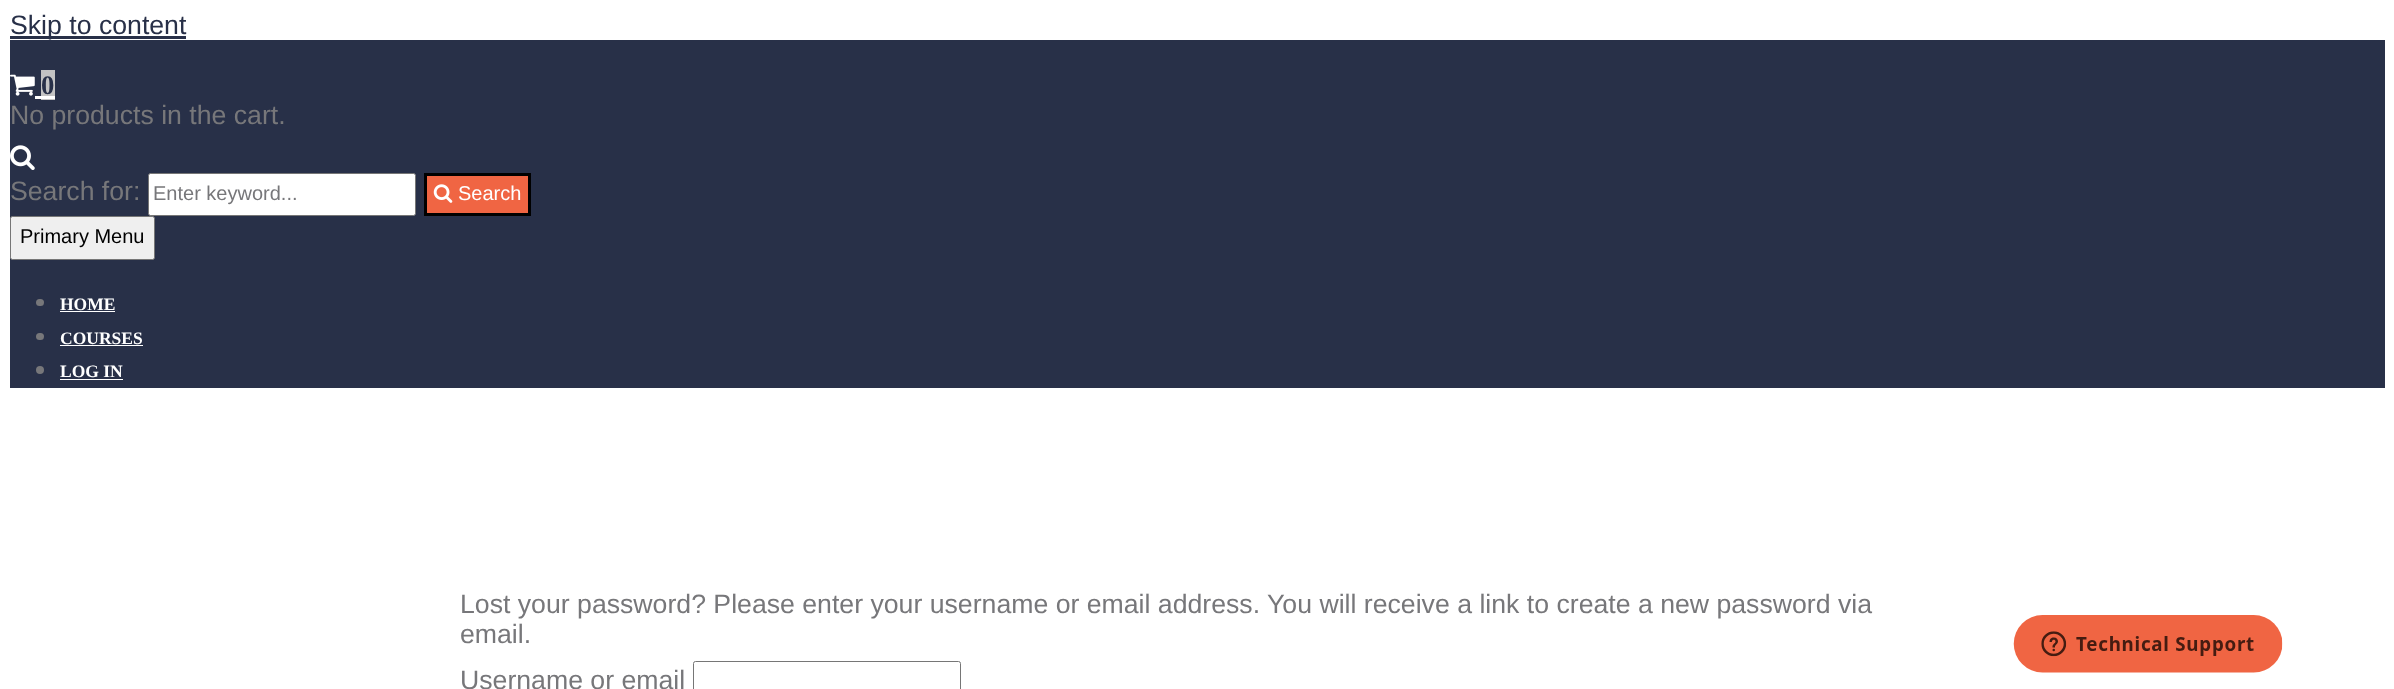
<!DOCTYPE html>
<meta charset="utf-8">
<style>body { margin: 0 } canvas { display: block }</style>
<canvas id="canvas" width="2394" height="689"></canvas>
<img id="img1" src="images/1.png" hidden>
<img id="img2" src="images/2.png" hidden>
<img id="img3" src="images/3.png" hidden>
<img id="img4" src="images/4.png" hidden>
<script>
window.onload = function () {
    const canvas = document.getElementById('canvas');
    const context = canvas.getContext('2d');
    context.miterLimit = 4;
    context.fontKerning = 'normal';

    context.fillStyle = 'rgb(255, 255, 255)';
    context.fillRect(0, 0, 2394, 689);
    context.fillStyle = 'rgb(40, 48, 72)';
    context.fillRect(10, 36, 176, 3);
    context.fillRect(10, 40, 2375, 348);
    context.drawImage(document.getElementById('img1'), 10, 74, 25, 22);
    context.fillStyle = 'rgb(195, 195, 195)';
    context.fillRect(41, 70, 14, 30);
    context.fillStyle = 'rgb(255, 255, 255)';
    context.fillRect(41, 96, 14, 3);
    context.fillRect(35, 96, 6, 3);
    context.drawImage(document.getElementById('img2'), 10, 145, 25, 25);
    context.beginPath();
    context.roundRect(148.5, 173.5, 267, 42, 2);
    context.fill();
    context.strokeStyle = 'rgb(118, 118, 118)';
    context.stroke();
    context.fillStyle = 'rgb(240, 101, 67)';
    context.beginPath();
    context.rect(425.5, 174.5, 104, 40);
    context.fill();
    context.strokeStyle = 'rgb(0, 0, 0)';
    context.lineWidth = 3;
    context.stroke();
    context.drawImage(document.getElementById('img3'), 433, 184, 20, 19);
    context.fillStyle = 'rgb(239, 239, 239)';
    context.beginPath();
    context.roundRect(10.5, 216.5, 144, 43, 2);
    context.fill();
    context.strokeStyle = 'rgb(118, 118, 118)';
    context.lineWidth = 1;
    context.stroke();
    context.fillStyle = 'rgb(119, 119, 122)';
    context.beginPath();
    context.roundRect(36, 299, 8, 7, 3.5);
    context.fill();
    context.fillStyle = 'rgb(255, 255, 255)';
    context.fillRect(60, 311, 55, 1);
    context.fillStyle = 'rgb(119, 119, 122)';
    context.beginPath();
    context.roundRect(36, 333, 8, 7, 3.5);
    context.fill();
    context.fillStyle = 'rgb(255, 255, 255)';
    context.fillRect(60, 345, 83, 1);
    context.fillStyle = 'rgb(119, 119, 122)';
    context.beginPath();
    context.arc(40, 370, 4, 0, 2 * Math.PI);
    context.fill();
    context.fillStyle = 'rgb(255, 255, 255)';
    context.fillRect(60, 379, 63, 1);
    context.beginPath();
    context.roundRect(693.5, 661.5, 267, 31, 2);
    context.stroke();
    context.drawImage(document.getElementById('img4'), 2013, 615, 270, 58);
    context.font = '26.67px Liberation Sans';
    context.fillStyle = 'rgb(40, 48, 72)';
    context.fillText('Skip to content', 10, 34);
    context.font = 'bold 26.67px Liberation Serif';
    context.fillText('0', 41, 94);
    context.font = '26.67px Liberation Sans';
    context.fillStyle = 'rgb(119, 119, 122)';
    context.fillText('No products in the cart.', 10, 124);
    context.fillText('Search for:', 10, 200);
    context.font = '20px Liberation Sans';
    context.fillText('Enter keyword...', 153, 200);
    context.fillStyle = 'rgb(255, 255, 255)';
    context.fillText('Search', 458, 200);
    context.fillStyle = 'rgb(0, 0, 0)';
    context.fillText('Primary Menu', 20, 243);
    context.font = 'bold 17.5px Liberation Serif';
    context.fillStyle = 'rgb(255, 255, 255)';
    context.fillText('HOME', 60, 310);
    context.fillText('COURSES', 60, 344);
    context.fillText('LOG IN', 60, 377);
    context.font = '26.67px Liberation Sans';
    context.fillStyle = 'rgb(119, 119, 122)';
    context.fillText('Lost your password? Please enter your username or email address. You will receive a link to create a new password via', 460, 613);
    context.fillText('email.', 460, 643);
    context.fillText('Username or email', 460, 689);
};
</script>
